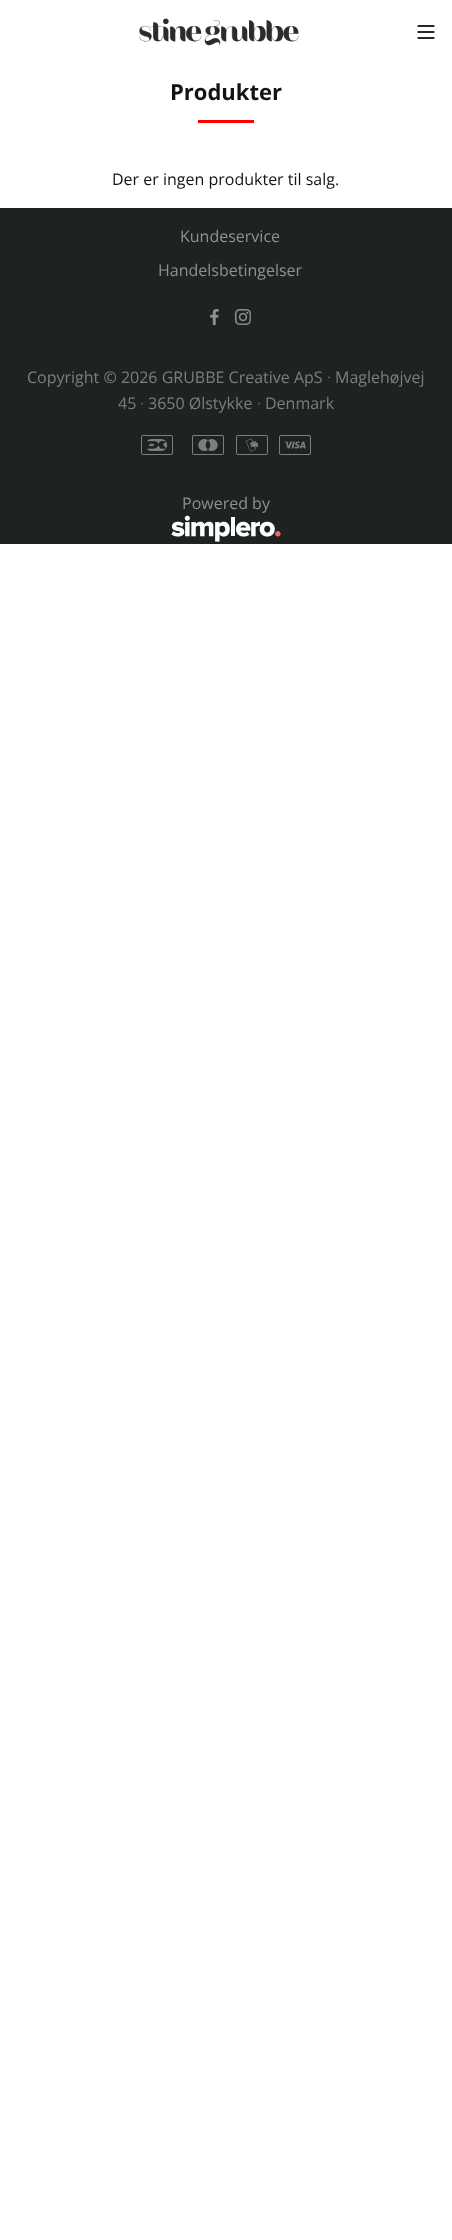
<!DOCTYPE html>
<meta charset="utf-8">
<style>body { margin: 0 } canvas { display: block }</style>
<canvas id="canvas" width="452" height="2240"></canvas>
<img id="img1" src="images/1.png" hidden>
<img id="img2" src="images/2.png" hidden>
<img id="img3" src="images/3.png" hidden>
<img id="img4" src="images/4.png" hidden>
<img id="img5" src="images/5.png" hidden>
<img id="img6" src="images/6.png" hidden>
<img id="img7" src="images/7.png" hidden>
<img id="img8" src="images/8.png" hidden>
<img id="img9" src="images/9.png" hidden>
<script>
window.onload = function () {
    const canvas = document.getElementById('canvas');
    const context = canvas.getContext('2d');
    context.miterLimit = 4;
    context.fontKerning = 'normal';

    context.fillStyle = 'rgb(255, 255, 255)';
    context.fillRect(0, 0, 452, 2240);
    context.drawImage(document.getElementById('img1'), 139, 18, 160, 28);
    context.drawImage(document.getElementById('img2'), 417, 25, 18, 14);
    context.fillStyle = 'rgb(255, 0, 0)';
    context.fillRect(198, 120, 56, 3);
    context.fillStyle = 'rgb(30, 35, 34)';
    context.fillRect(0, 208, 452, 336);
    context.drawImage(document.getElementById('img3'), 210, 309, 9, 16);
    context.drawImage(document.getElementById('img4'), 235, 309, 16, 16);
    context.drawImage(document.getElementById('img5'), 141, 435, 32, 20);
    context.drawImage(document.getElementById('img6'), 192, 435, 32, 20);
    context.drawImage(document.getElementById('img7'), 236, 435, 32, 20);
    context.drawImage(document.getElementById('img8'), 279, 435, 32, 20);
    context.drawImage(document.getElementById('img9'), 171, 515, 110, 27);
    context.font = 'bold 22px Open Sans';
    context.fillStyle = 'rgb(20, 20, 20)';
    context.fillText('Produkter', 170, 100);
    context.font = '16px Open Sans';
    context.fillText('Der er ingen produkter til salg.', 112, 185);
    context.fillStyle = 'rgb(140, 147, 145)';
    context.fillText('Kundeservice', 180, 242);
    context.fillText('Handelsbetingelser', 158, 276);
    context.fillStyle = 'rgb(120, 128, 125)';
    context.fillText('Copyright © 2026 GRUBBE Creative ApS', 27, 383);
    context.fillStyle = 'rgb(90, 97, 95)';
    context.fillText('·', 327, 383);
    context.fillStyle = 'rgb(120, 128, 125)';
    context.fillText('Maglehøjvej', 335, 383);
    context.fillText('45', 118, 409);
    context.fillStyle = 'rgb(90, 97, 95)';
    context.fillText('·', 140, 409);
    context.fillStyle = 'rgb(120, 128, 125)';
    context.fillText('3650 Ølstykke', 148, 409);
    context.fillStyle = 'rgb(90, 97, 95)';
    context.fillText('·', 257, 409);
    context.fillStyle = 'rgb(120, 128, 125)';
    context.fillText('Denmark', 265, 409);
    context.fillStyle = 'rgb(140, 147, 145)';
    context.fillText('Powered by', 182, 509);
};
</script>
